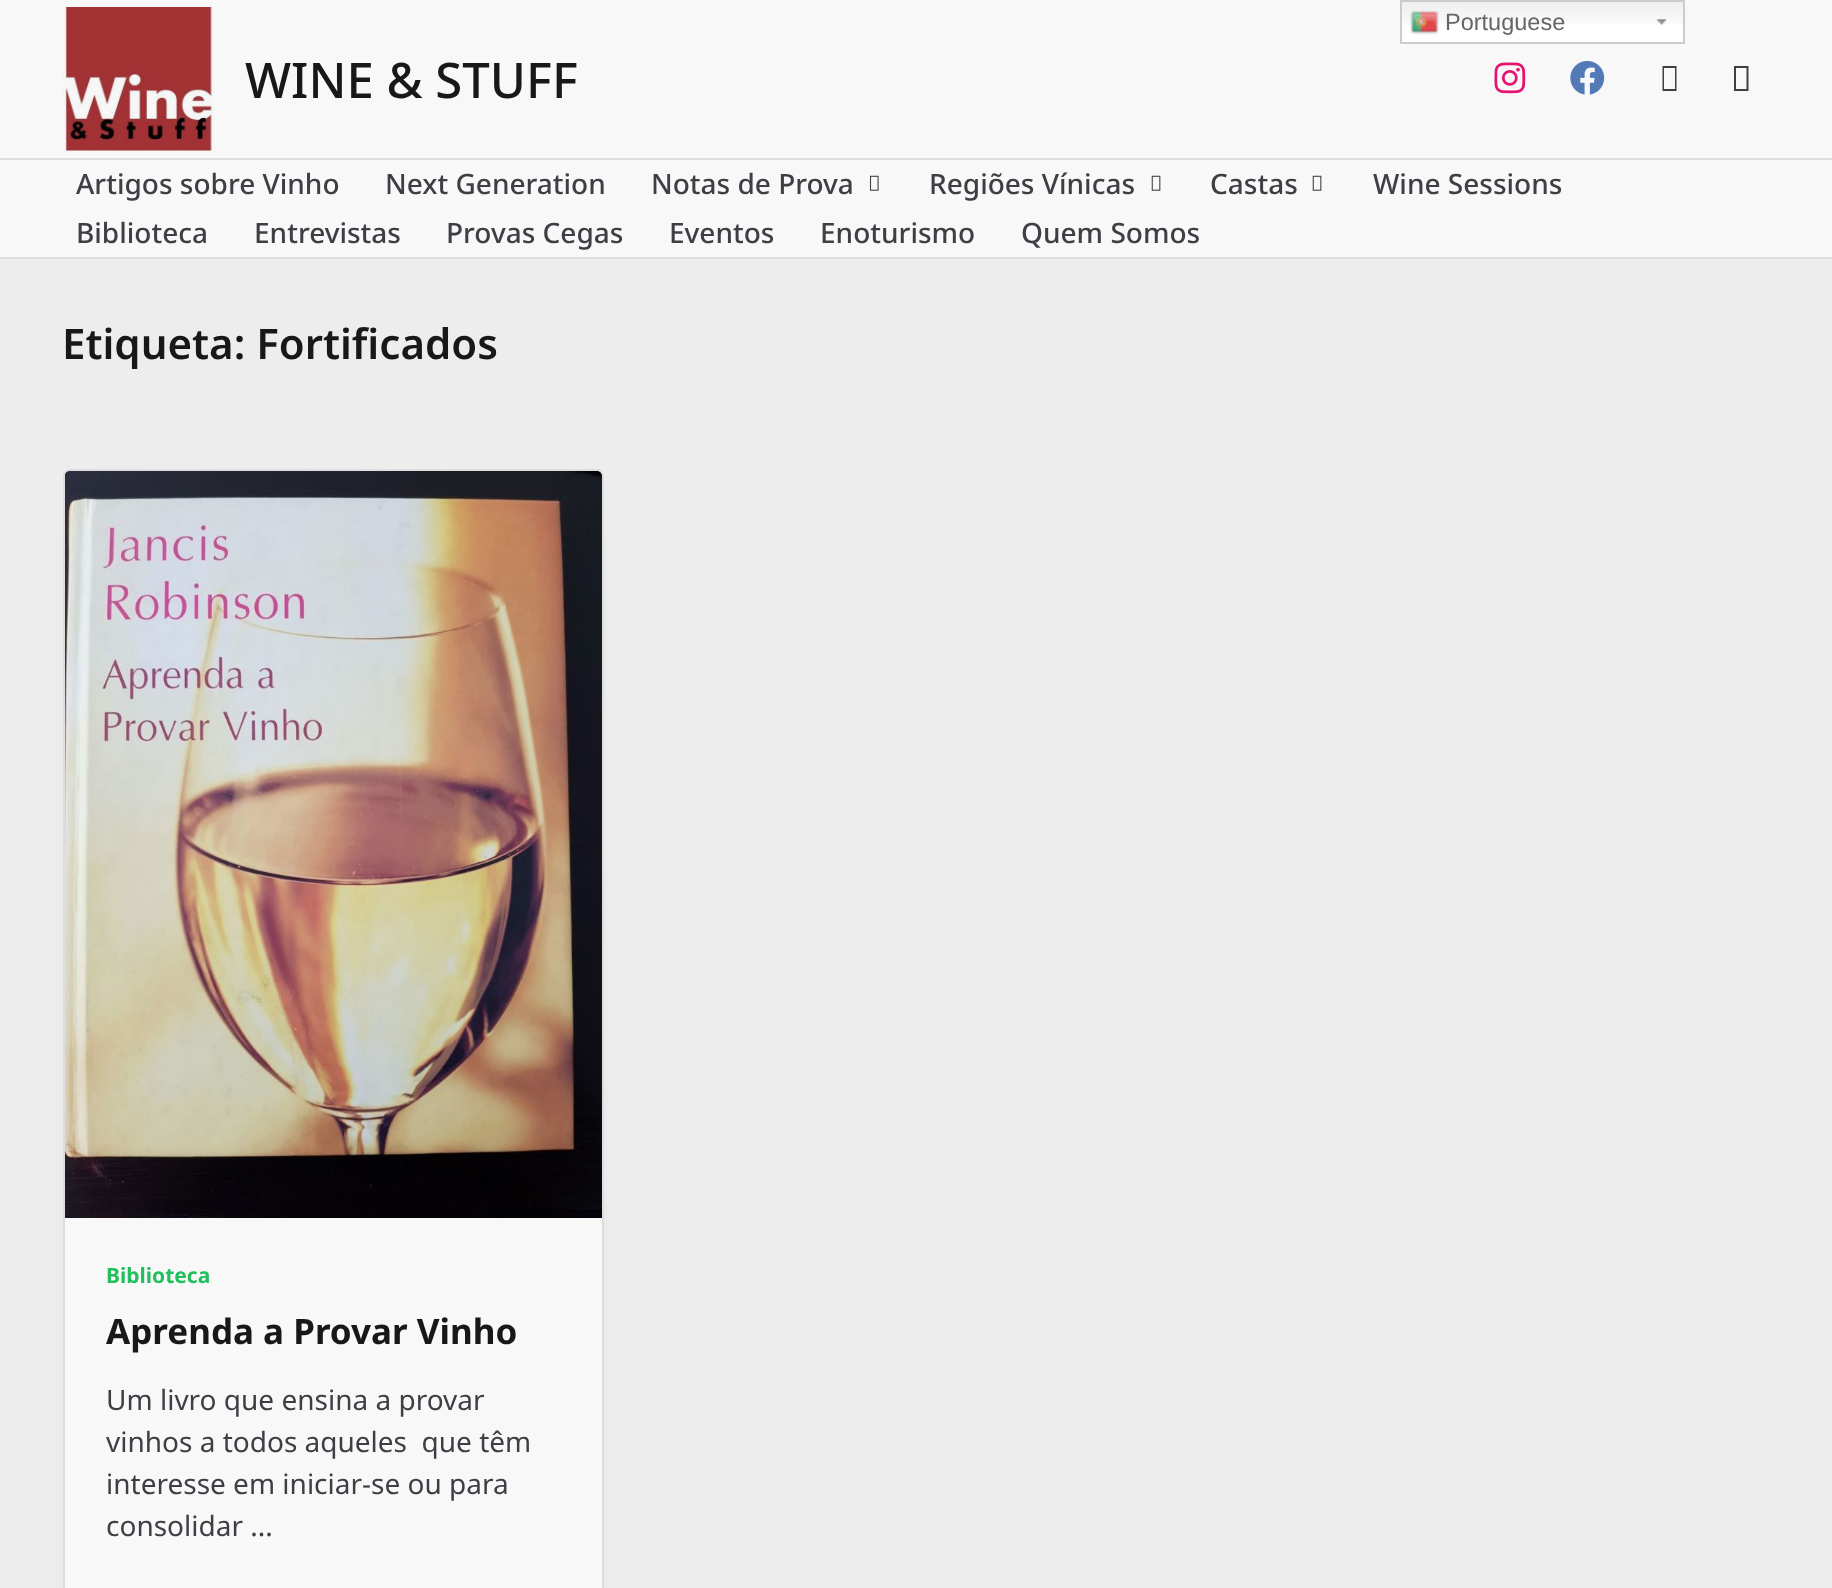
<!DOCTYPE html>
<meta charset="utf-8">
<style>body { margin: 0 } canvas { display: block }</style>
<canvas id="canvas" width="1832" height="1588"></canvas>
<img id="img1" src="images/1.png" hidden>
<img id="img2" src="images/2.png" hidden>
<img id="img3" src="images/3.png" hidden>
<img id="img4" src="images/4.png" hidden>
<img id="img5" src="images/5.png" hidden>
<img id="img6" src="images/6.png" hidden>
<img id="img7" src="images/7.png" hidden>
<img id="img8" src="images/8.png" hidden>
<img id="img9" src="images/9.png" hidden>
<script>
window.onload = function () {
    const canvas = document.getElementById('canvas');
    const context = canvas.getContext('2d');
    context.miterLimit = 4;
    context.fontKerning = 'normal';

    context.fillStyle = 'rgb(237, 237, 238)';
    context.fillRect(0, 0, 1832, 1588);
    context.fillStyle = 'rgb(248, 248, 248)';
    context.fillRect(0, 0, 1832, 158);
    context.fillStyle = 'rgb(255, 255, 255)';
    context.fillRect(1402, 24, 281, 18);
    context.drawImage(document.getElementById('img1'), 1402, 2, 281, 22);
    context.drawImage(document.getElementById('img2'), 1657, 19, 9, 6);
    context.strokeStyle = 'rgb(204, 204, 204)';
    context.lineWidth = 2;
    context.strokeRect(1401, 1, 283, 42);
    context.drawImage(document.getElementById('img3'), 1410, 10, 29, 25);
    context.fillStyle = 'rgb(222, 222, 225)';
    context.fillRect(0, 158, 1832, 2);
    context.drawImage(document.getElementById('img4'), 63, 7, 151, 144);
    context.drawImage(document.getElementById('img5'), 1494, 62, 32, 32);
    context.drawImage(document.getElementById('img6'), 1570, 60, 35, 35);
    context.fillStyle = 'rgb(62, 62, 69)';
    context.beginPath();
    context.moveTo(1662.5, 91);
    context.lineTo(1662.5, 66);
    context.lineTo(1676.5, 66);
    context.lineTo(1676.5, 91);
    context.closePath();
    context.moveTo(1664, 89);
    context.lineTo(1675, 89);
    context.lineTo(1675, 68);
    context.lineTo(1664, 68);
    context.closePath();
    context.fill();
    context.beginPath();
    context.moveTo(1734, 91);
    context.lineTo(1734, 66);
    context.lineTo(1748.5, 66);
    context.lineTo(1748.5, 91);
    context.closePath();
    context.moveTo(1736, 89);
    context.lineTo(1746.5, 89);
    context.lineTo(1746.5, 68);
    context.lineTo(1736, 68);
    context.closePath();
    context.fill();
    context.fillStyle = 'rgb(248, 248, 248)';
    context.fillRect(0, 160, 1832, 97);
    context.fillStyle = 'rgb(222, 222, 225)';
    context.fillRect(0, 257, 1832, 2);
    context.drawImage(document.getElementById('img7'), 869, 175, 10, 16);
    context.drawImage(document.getElementById('img8'), 1151, 175, 10, 16);
    context.drawImage(document.getElementById('img8'), 1312, 175, 10, 16);
    context.fillStyle = 'rgba(43, 61, 78, 0.45)';
    context.filter = 'blur(16px)';
    context.beginPath();
    context.rect(89, 522, 489, 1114);
    context.fill();
    context.filter = 'none';
    context.fillStyle = 'rgb(248, 248, 248)';
    context.beginPath();
    context.roundRect(64, 470, 539, 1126, 6);
    context.fill();
    context.strokeStyle = 'rgb(222, 222, 225)';
    context.stroke();
    context.drawImage(document.getElementById('img9'), 65, 471, 537, 747);
    context.font = '23.5px Liberation Sans';
    context.fillStyle = 'rgb(102, 102, 102)';
    context.fillText('Portuguese', 1445, 30);
    context.font = '500 49px Noto Sans';
    context.fillStyle = 'rgb(24, 24, 27)';
    context.fillText('WINE & STUFF', 245, 98);
    context.font = '500 28px Noto Sans';
    context.fillStyle = 'rgb(62, 62, 69)';
    context.fillText('Artigos sobre Vinho', 76, 194);
    context.fillText('Next Generation', 385, 194);
    context.fillText('Notas de Prova', 651, 194);
    context.fillText('Regiões Vínicas', 929, 194);
    context.fillText('Castas', 1210, 194);
    context.fillText('Wine Sessions', 1373, 194);
    context.fillText('Biblioteca', 76, 243);
    context.fillText('Entrevistas', 254, 243);
    context.fillText('Provas Cegas', 446, 243);
    context.fillText('Eventos', 669, 243);
    context.fillText('Enoturismo', 820, 243);
    context.fillText('Quem Somos', 1021, 243);
    context.font = '600 42px Noto Sans';
    context.fillStyle = 'rgb(24, 24, 27)';
    context.fillText('Etiqueta: Fortificados', 62, 359);
    context.font = 'bold 21px Noto Sans';
    context.fillStyle = 'rgb(34, 192, 92)';
    context.fillText('Biblioteca', 106, 1283);
    context.font = 'bold 35px Noto Sans';
    context.fillStyle = 'rgb(24, 24, 27)';
    context.fillText('Aprenda a Provar Vinho', 106, 1344);
    context.font = '28px Noto Sans';
    context.fillStyle = 'rgb(62, 62, 69)';
    context.fillText('Um livro que ensina a provar', 106, 1410);
    context.fillText('vinhos a todos aqueles  que têm', 106, 1452);
    context.fillText('interesse em iniciar-se ou para', 106, 1494);
    context.fillText('consolidar ...', 106, 1536);
};
</script>
